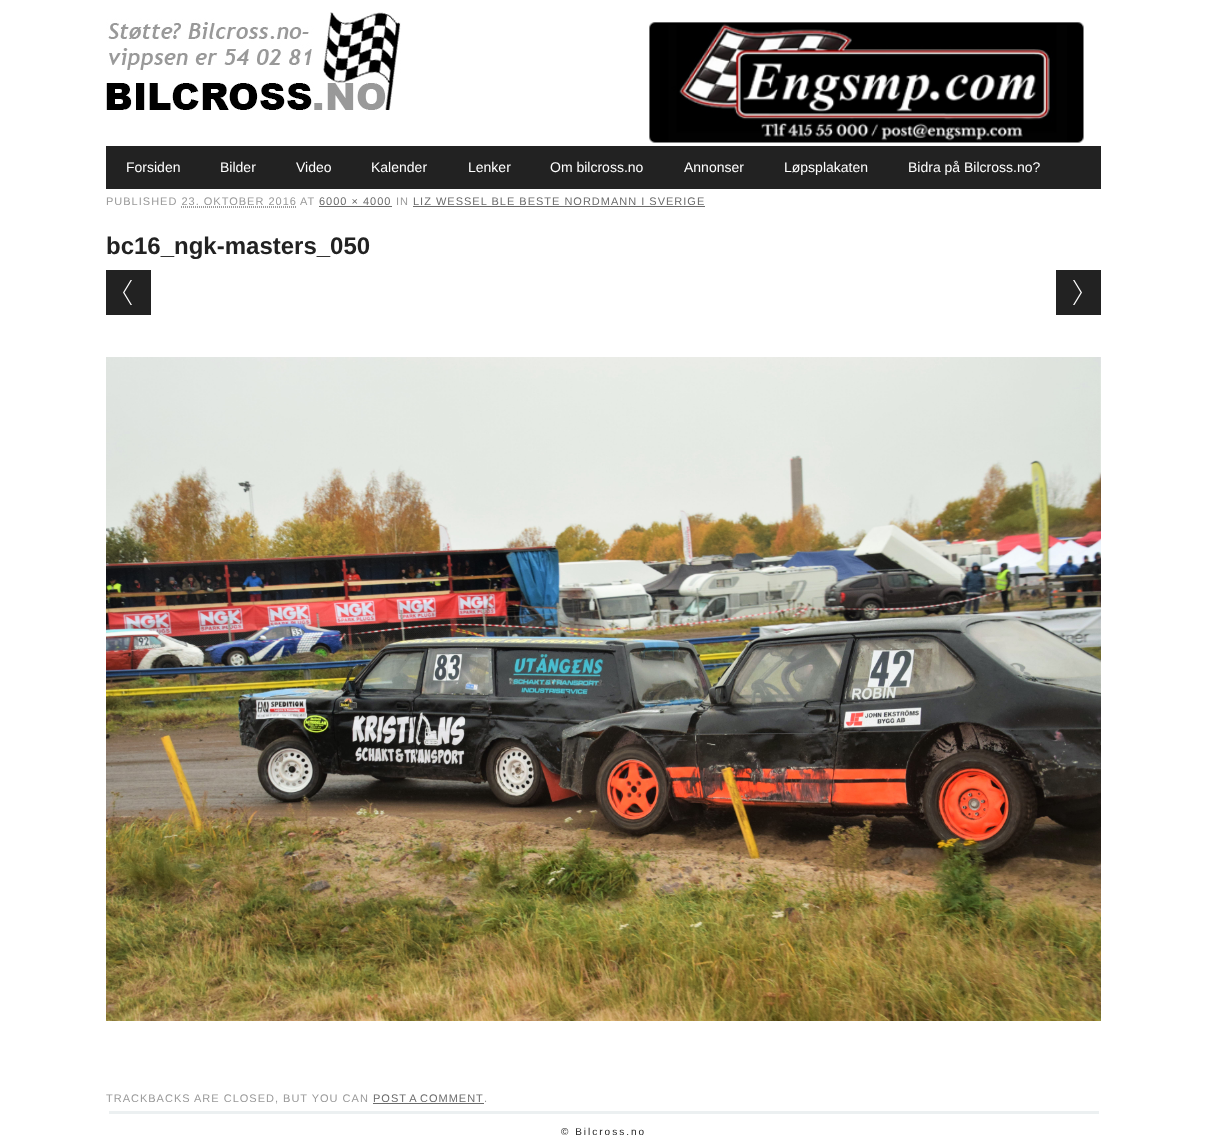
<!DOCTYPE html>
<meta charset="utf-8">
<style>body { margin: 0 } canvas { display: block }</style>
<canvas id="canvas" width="1207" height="1145"></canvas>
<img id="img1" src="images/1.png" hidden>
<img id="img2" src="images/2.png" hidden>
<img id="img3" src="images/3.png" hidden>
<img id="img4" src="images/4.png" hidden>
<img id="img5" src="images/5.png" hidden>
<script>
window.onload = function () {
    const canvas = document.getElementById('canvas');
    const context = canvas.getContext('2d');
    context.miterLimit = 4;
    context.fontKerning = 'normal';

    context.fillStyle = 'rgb(255, 255, 255)';
    context.fillRect(0, 0, 1207, 1145);
    context.drawImage(document.getElementById('img1'), 106, 12, 295, 98);
    context.drawImage(document.getElementById('img2'), 649, 22, 435, 121);
    context.fillStyle = 'rgb(34, 34, 34)';
    context.fillRect(106, 146, 995, 43);
    context.fillStyle = 'rgb(107, 107, 107)';
    context.fillRect(319, 206, 73, 1);
    context.fillRect(413, 206, 292, 1);
    context.beginPath();
    context.moveTo(181, 206.5);
    context.lineTo(296.5, 206.5);
    context.strokeStyle = 'rgb(153, 153, 153)';
    context.setLineDash([1, 1]);
    context.stroke();
    context.beginPath();
    context.moveTo(181, 207.5);
    context.lineTo(297, 207.5);
    context.stroke();
    context.fillStyle = 'rgb(34, 34, 34)';
    context.fillRect(106, 270, 45, 45);
    context.drawImage(document.getElementById('img3'), 123, 280, 9, 25);
    context.fillRect(1056, 270, 45, 45);
    context.drawImage(document.getElementById('img4'), 1073, 280, 9, 25);
    context.drawImage(document.getElementById('img5'), 106, 357, 995, 664);
    context.fillStyle = 'rgb(107, 107, 107)';
    context.fillRect(373, 1103, 111, 1);
    context.fillStyle = 'rgb(236, 240, 241)';
    context.fillRect(109, 1111, 990, 3);
    context.font = '14px Liberation Sans';
    context.fillStyle = 'rgb(255, 255, 255)';
    context.fillText('Forsiden', 126, 172);
    context.fillText('Bilder', 220, 172);
    context.fillText('Video', 296, 172);
    context.fillText('Kalender', 371, 172);
    context.fillText('Lenker', 468, 172);
    context.fillText('Om bilcross.no', 550, 172);
    context.fillText('Annonser', 684, 172);
    context.fillText('Løpsplakaten', 784, 172);
    context.fillText('Bidra på Bilcross.no?', 908, 172);
    context.letterSpacing = '1px';
    context.font = '11px Liberation Sans';
    context.fillStyle = 'rgb(153, 153, 153)';
    context.fillText('PUBLISHED 23. OKTOBER 2016', 106, 205);
    context.fillText('AT', 300, 205);
    context.fillStyle = 'rgb(107, 107, 107)';
    context.fillText('6000 × 4000', 319, 205);
    context.fillStyle = 'rgb(153, 153, 153)';
    context.fillText('IN', 396, 205);
    context.fillStyle = 'rgb(107, 107, 107)';
    context.fillText('LIZ WESSEL BLE BESTE NORDMANN I SVERIGE', 413, 205);
    context.letterSpacing = '0px';
    context.font = 'bold 24px Liberation Sans';
    context.fillStyle = 'rgb(34, 34, 34)';
    context.fillText('bc16_ngk-masters_050', 106, 254);
    context.letterSpacing = '1px';
    context.font = '11px Liberation Sans';
    context.fillStyle = 'rgb(153, 153, 153)';
    context.fillText('TRACKBACKS ARE CLOSED, BUT YOU CAN', 106, 1102);
    context.wordSpacing = '-1px';
    context.fillStyle = 'rgb(107, 107, 107)';
    context.fillText('POST A COMMENT', 373, 1102);
    context.wordSpacing = '0px';
    context.fillStyle = 'rgb(153, 153, 153)';
    context.fillText('.', 484, 1102);
    context.letterSpacing = '2px';
    context.font = '10px Liberation Sans';
    context.fillStyle = 'rgb(34, 34, 34)';
    context.fillText('© Bilcross.no', 561, 1135);
};
</script>
